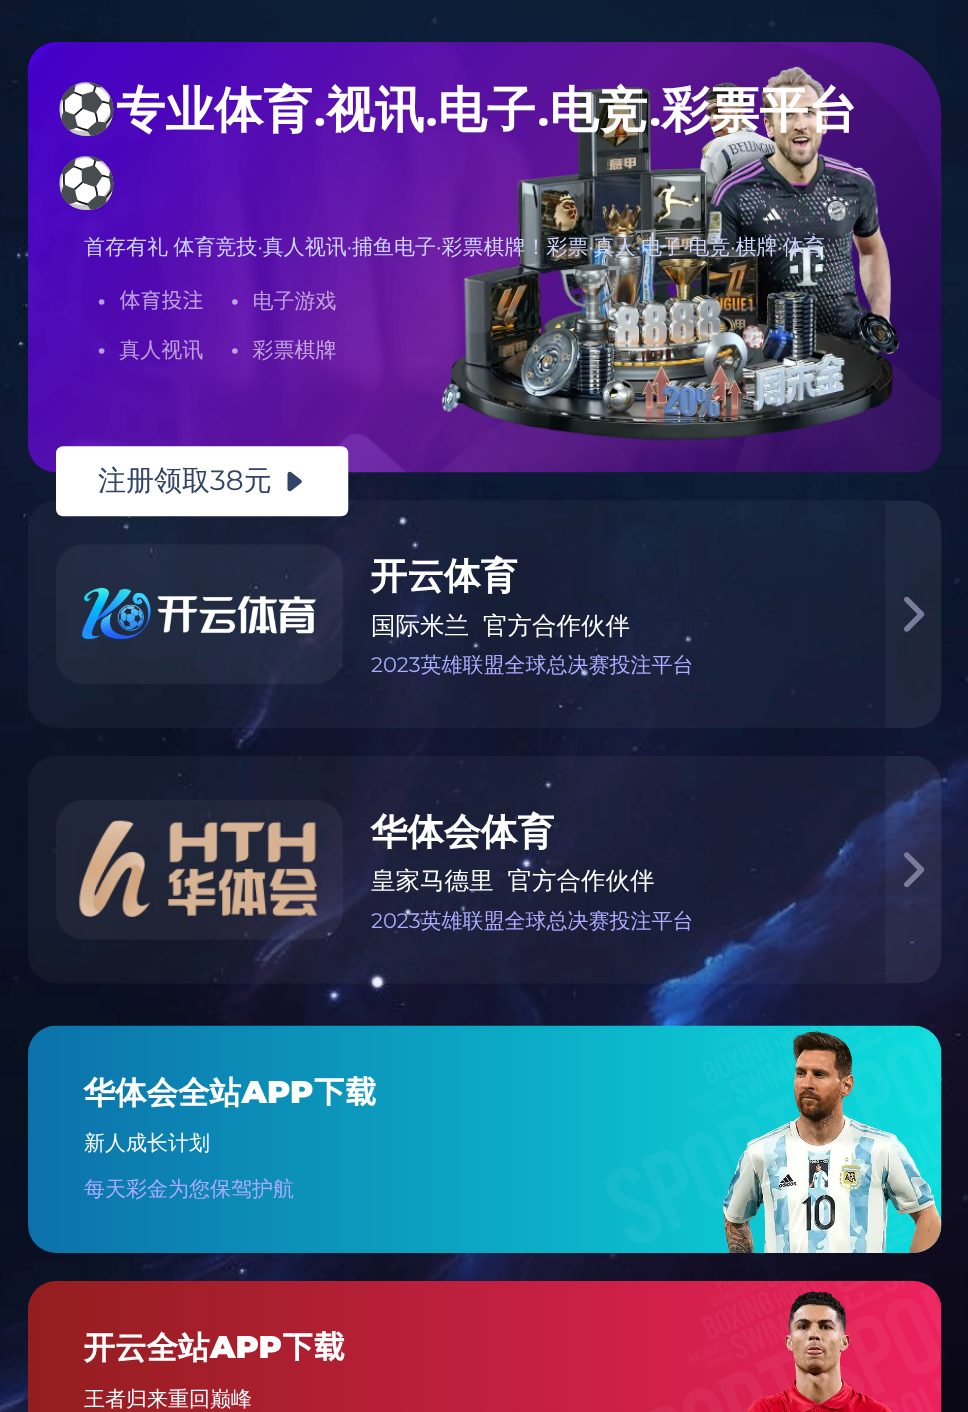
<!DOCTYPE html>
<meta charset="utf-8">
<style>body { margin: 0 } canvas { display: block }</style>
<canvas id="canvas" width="968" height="1412"></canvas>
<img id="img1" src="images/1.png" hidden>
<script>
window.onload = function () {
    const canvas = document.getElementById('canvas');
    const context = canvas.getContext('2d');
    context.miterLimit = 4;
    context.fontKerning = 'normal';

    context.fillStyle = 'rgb(255, 255, 255)';
    context.fillRect(0, 0, 968, 1412);
    context.drawImage(document.getElementById('img1'), 0, 0, 968, 1412);
};
</script>
